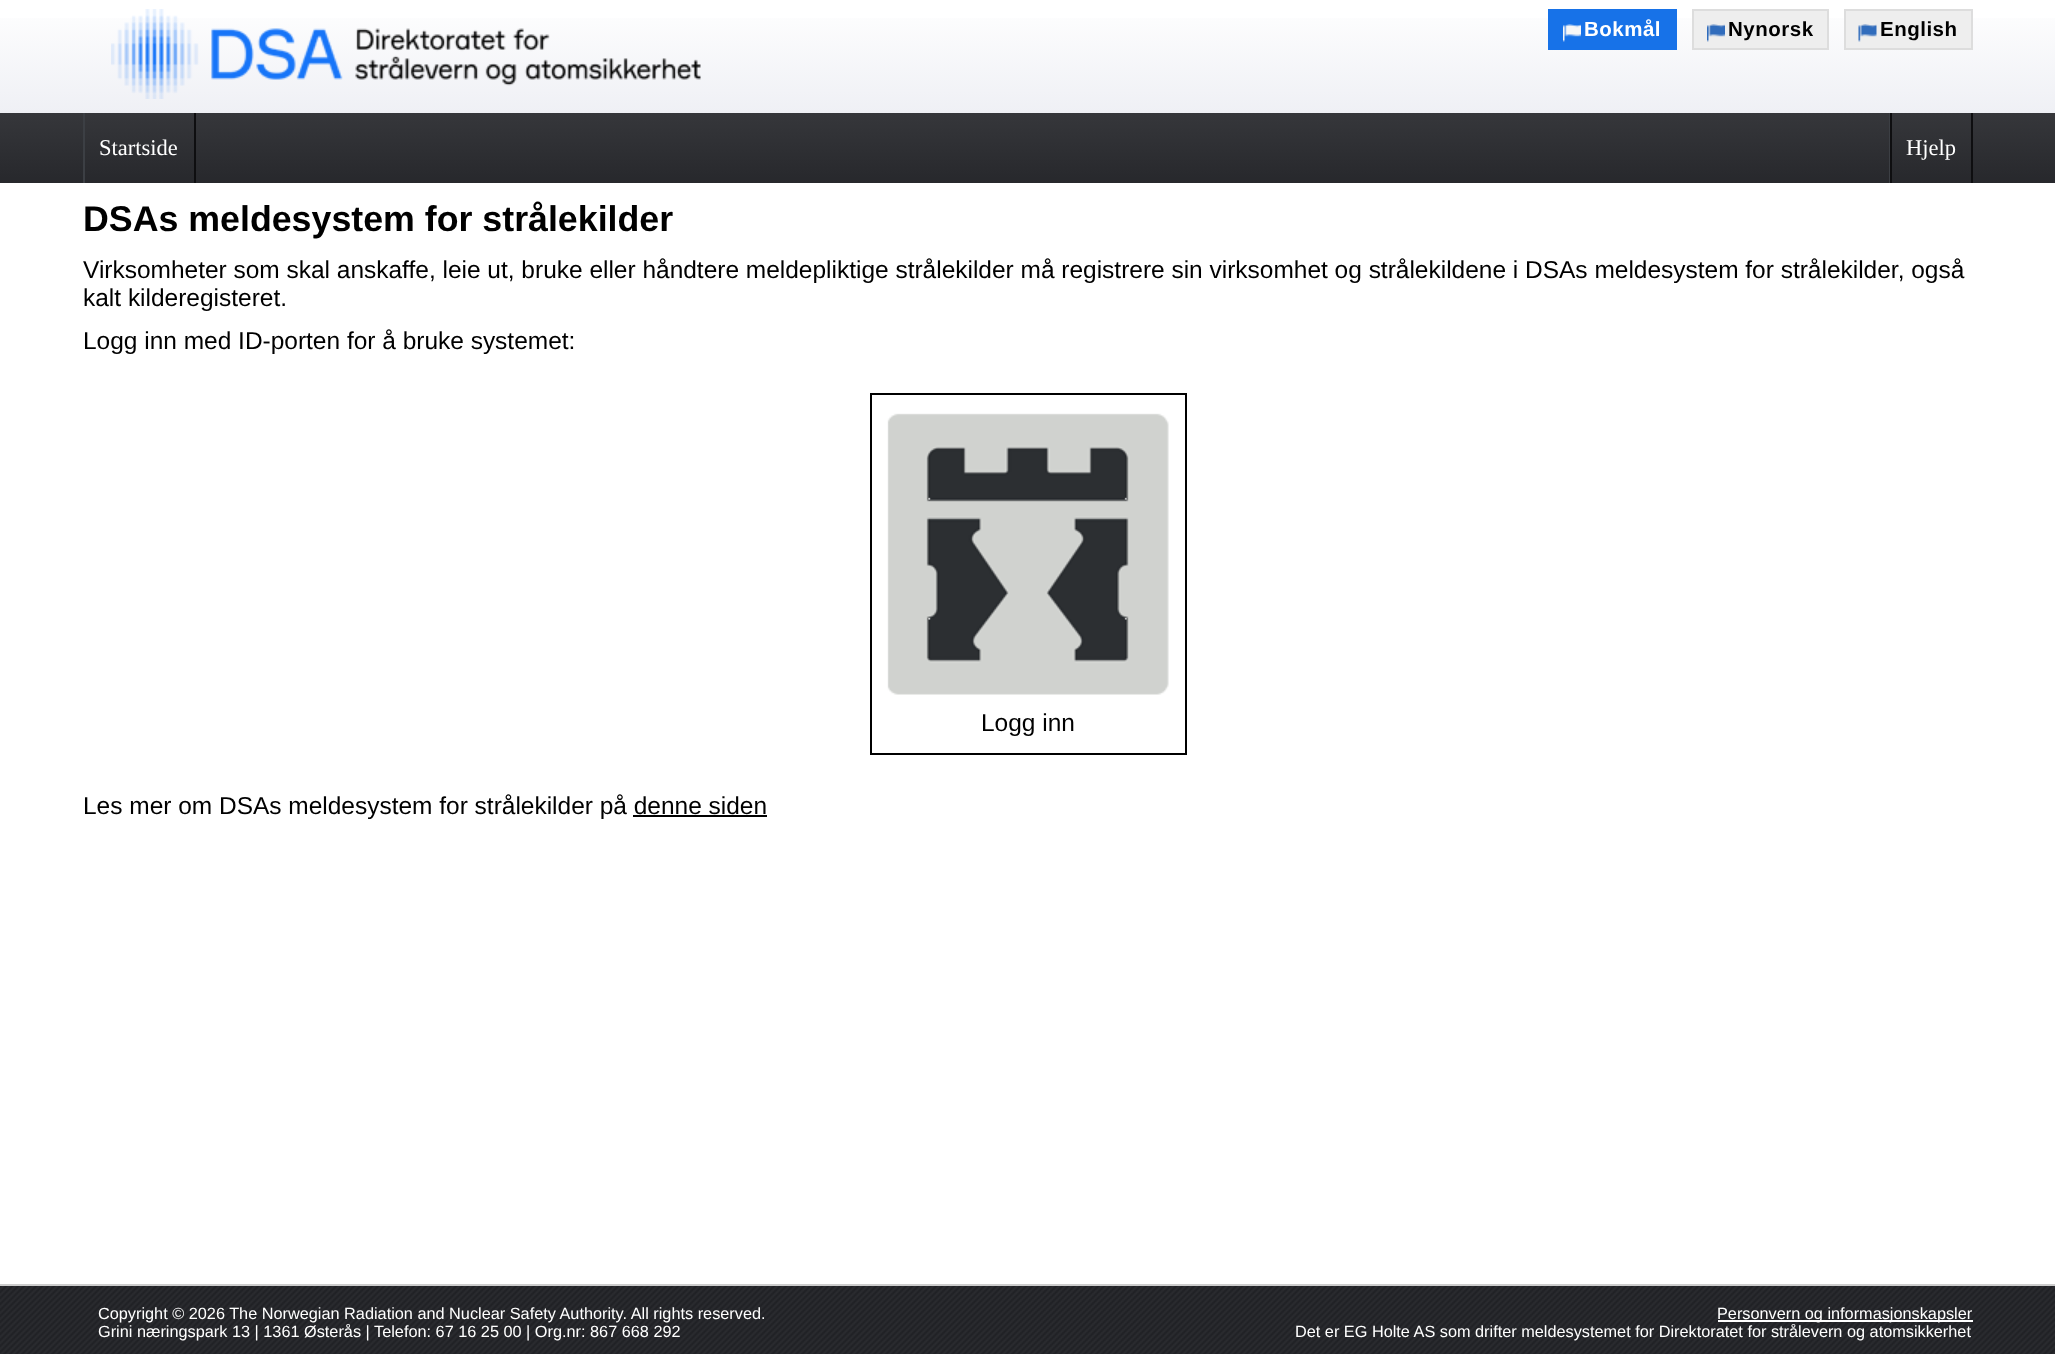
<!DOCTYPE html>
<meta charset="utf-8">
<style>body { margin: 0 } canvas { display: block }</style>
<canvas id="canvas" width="2055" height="1354"></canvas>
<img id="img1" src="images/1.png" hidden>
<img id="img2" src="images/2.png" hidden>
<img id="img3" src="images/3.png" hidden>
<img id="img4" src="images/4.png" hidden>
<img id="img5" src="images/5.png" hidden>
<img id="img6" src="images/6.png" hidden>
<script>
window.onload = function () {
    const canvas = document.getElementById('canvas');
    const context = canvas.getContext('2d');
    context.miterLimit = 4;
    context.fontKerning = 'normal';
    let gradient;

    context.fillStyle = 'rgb(255, 255, 255)';
    context.fillRect(0, 0, 2055, 1354);
    gradient = context.createLinearGradient(1028, 0, 1028, 113);
    gradient.addColorStop(0, 'rgb(255, 255, 255)');
    gradient.addColorStop(1, 'rgb(239, 240, 245)');
    context.fillStyle = gradient;
    context.fillRect(0, 18, 2055, 95);
    context.drawImage(document.getElementById('img1'), 111, 9, 590, 90);
    context.fillStyle = 'rgb(23, 114, 232)';
    context.fillRect(1548, 9, 129, 41);
    context.drawImage(document.getElementById('img2'), 1563, 24, 18, 18);
    context.fillStyle = 'rgb(238, 238, 238)';
    context.fillRect(1694, 11, 133, 37);
    context.drawImage(document.getElementById('img3'), 1707, 24, 18, 18);
    context.strokeStyle = 'rgb(221, 221, 221)';
    context.lineWidth = 2;
    context.strokeRect(1693, 10, 135, 39);
    context.fillRect(1846, 11, 125, 37);
    context.drawImage(document.getElementById('img4'), 1858, 24, 19, 18);
    context.strokeRect(1845, 10, 127, 39);
    gradient = context.createLinearGradient(1028, 112, 1028, 183);
    gradient.addColorStop(0, 'rgb(54, 55, 59)');
    gradient.addColorStop(1, 'rgb(39, 40, 44)');
    context.fillStyle = gradient;
    context.fillRect(0, 113, 2055, 70);
    context.fillStyle = 'rgb(14, 14, 16)';
    context.fillRect(194, 113, 2, 70);
    context.fillStyle = 'rgb(60, 63, 68)';
    context.fillRect(83, 113, 2, 70);
    context.fillStyle = 'rgb(14, 14, 16)';
    context.fillRect(1971, 113, 2, 70);
    context.fillStyle = 'rgb(60, 63, 68)';
    context.fillRect(1889, 113, 1, 70);
    context.fillStyle = 'rgb(14, 14, 16)';
    context.fillRect(1890, 113, 2, 70);
    context.strokeStyle = 'rgb(0, 0, 0)';
    context.strokeRect(871, 394, 315, 360);
    context.drawImage(document.getElementById('img5'), 887, 413, 282, 282);
    context.fillStyle = 'rgb(0, 0, 0)';
    context.fillRect(633, 815, 134, 2);
    context.drawImage(document.getElementById('img6'), 0, 1286, 2055, 68);
    context.fillStyle = 'rgb(204, 204, 204)';
    context.fillRect(0, 1284, 2055, 2);
    context.fillStyle = 'rgb(255, 255, 255)';
    context.fillRect(1718, 1320, 255, 2);
    context.letterSpacing = '0.5px';
    context.font = 'bold 20.5px Liberation Sans';
    context.fillText('Bokmål', 1584, 36);
    context.fillStyle = 'rgb(0, 0, 0)';
    context.fillText('Nynorsk', 1728, 36);
    context.fillText('English', 1880, 36);
    context.letterSpacing = '0px';
    context.font = '22.5px Liberation Serif';
    context.fillStyle = 'rgb(255, 255, 255)';
    context.fillText('Startside', 99, 155);
    context.fillText('Hjelp', 1906, 155);
    context.font = 'bold 35.75px Liberation Sans';
    context.fillStyle = 'rgb(0, 0, 0)';
    context.fillText('DSAs meldesystem for strålekilder', 83, 231);
    context.font = '24.48px Liberation Sans';
    context.fillText('Virksomheter som skal anskaffe, leie ut, bruke eller håndtere meldepliktige strålekilder må registrere sin virksomhet og strålekildene i DSAs meldesystem for strålekilder, også', 83, 278);
    context.fillText('kalt kilderegisteret.', 83, 306);
    context.fillText('Logg inn med ID-porten for å bruke systemet:', 83, 349);
    context.fillText('Logg inn', 981, 731);
    context.fillText('Les mer om DSAs meldesystem for strålekilder på denne siden', 83, 814);
    context.font = '16.3px Liberation Sans';
    context.fillStyle = 'rgb(255, 255, 255)';
    context.fillText('Copyright © 2026 The Norwegian Radiation and Nuclear Safety Authority. All rights reserved.', 98, 1319);
    context.fillText('Grini næringspark 13 | 1361 Østerås | Telefon: 67 16 25 00 | Org.nr: 867 668 292', 98, 1337);
    context.fillText('Personvern og informasjonskapsler', 1717, 1319);
    context.fillText('Det er EG Holte AS som drifter meldesystemet for Direktoratet for strålevern og atomsikkerhet', 1295, 1337);
};
</script>
